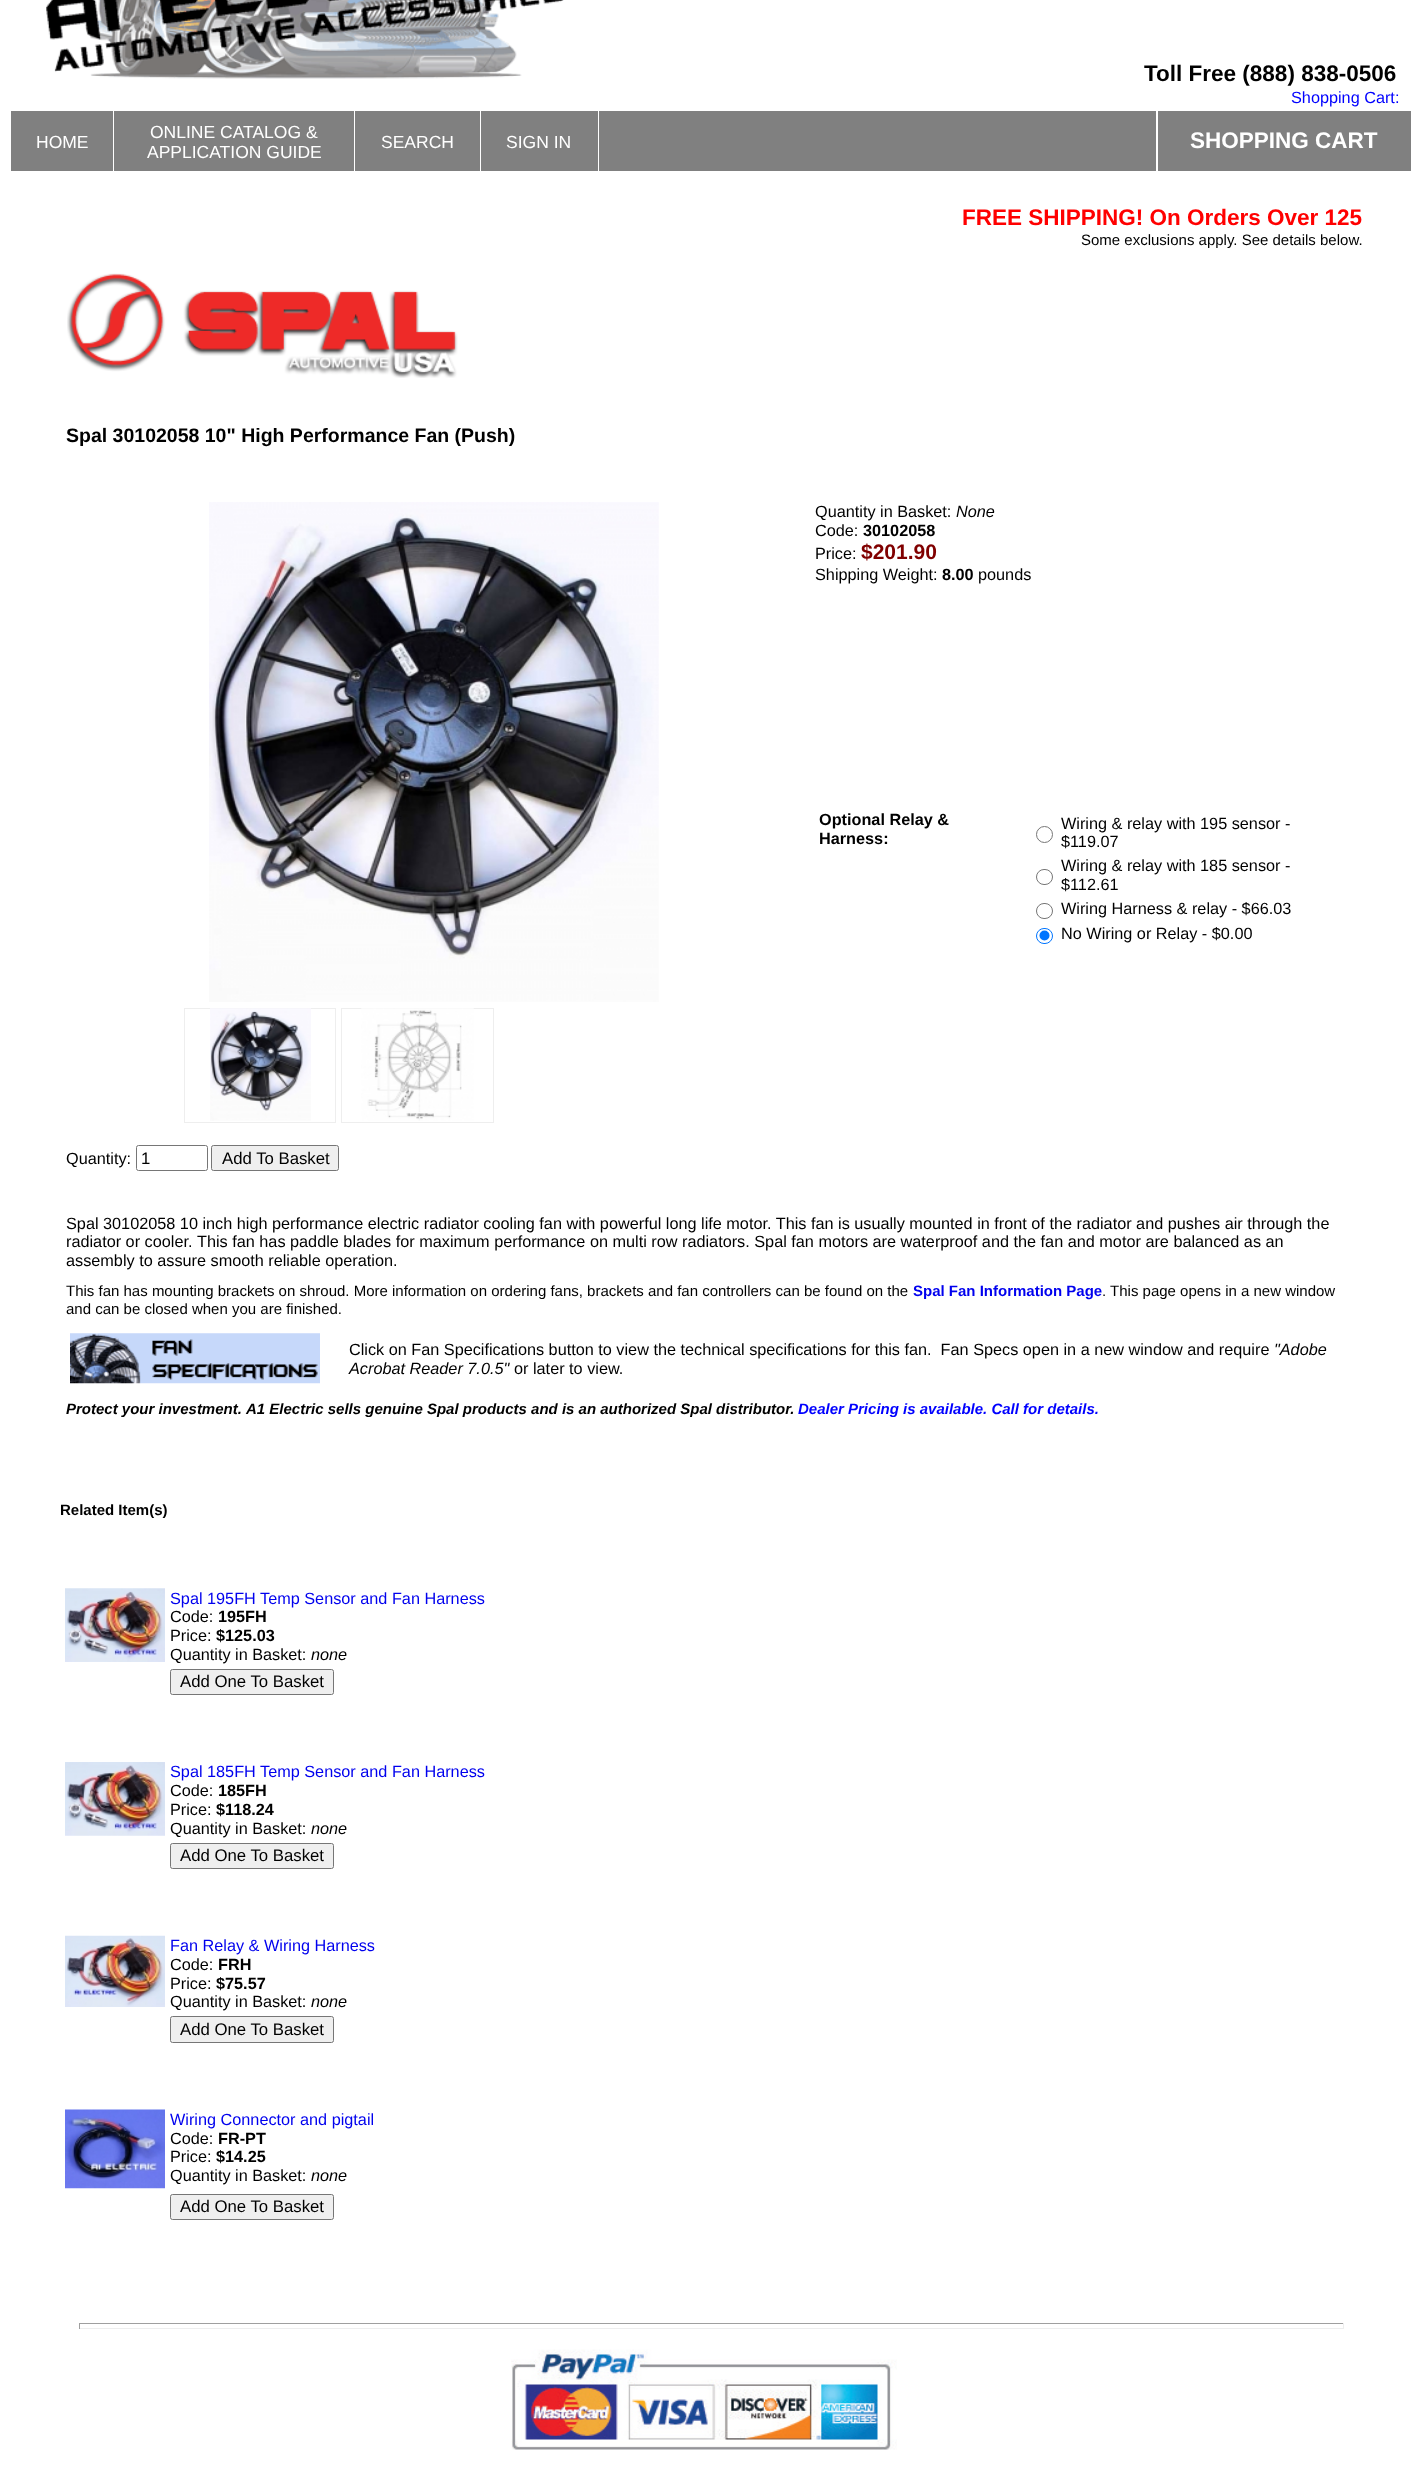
<!DOCTYPE html>
<meta charset="utf-8">
<style>body { margin: 0 } canvas { display: block }</style>
<canvas id="canvas" width="1422" height="2478"></canvas>
<img id="img1" src="images/1.png" hidden>
<img id="img2" src="images/2.png" hidden>
<img id="img3" src="images/3.png" hidden>
<img id="img4" src="images/4.png" hidden>
<img id="img5" src="images/5.png" hidden>
<img id="img6" src="images/6.png" hidden>
<img id="img7" src="images/7.png" hidden>
<img id="img8" src="images/8.png" hidden>
<img id="img9" src="images/9.png" hidden>
<img id="img10" src="images/10.png" hidden>
<img id="img11" src="images/11.png" hidden>
<script>
window.onload = function () {
    const canvas = document.getElementById('canvas');
    const context = canvas.getContext('2d');
    context.miterLimit = 4;
    context.fontKerning = 'normal';

    context.fillStyle = 'rgb(255, 255, 255)';
    context.fillRect(0, 0, 1422, 2478);
    context.drawImage(document.getElementById('img1'), 46, 0, 518, 79);
    context.fillStyle = 'rgb(128, 128, 128)';
    context.fillRect(11, 111, 102, 60);
    context.fillRect(114, 111, 240, 60);
    context.fillRect(355, 111, 125, 60);
    context.fillRect(481, 111, 117, 60);
    context.fillRect(599, 111, 557, 60);
    context.fillRect(1158, 111, 253, 60);
    context.drawImage(document.getElementById('img2'), 67, 273, 391, 105);
    context.drawImage(document.getElementById('img3'), 209, 502, 450, 500);
    context.strokeStyle = 'rgb(238, 238, 238)';
    context.strokeRect(184.5, 1008.5, 151, 114);
    context.drawImage(document.getElementById('img4'), 210, 1008, 101, 113);
    context.strokeRect(341.5, 1008.5, 152, 114);
    context.drawImage(document.getElementById('img5'), 361, 1008, 113, 113);
    context.beginPath();
    context.arc(1044.5, 834.5, 8, 0, 2 * Math.PI);
    context.strokeStyle = 'rgb(118, 118, 118)';
    context.stroke();
    context.beginPath();
    context.roundRect(1036.5, 869.5, 16, 15, 7.5);
    context.stroke();
    context.beginPath();
    context.roundRect(1036.5, 903.5, 16, 15, 7.5);
    context.stroke();
    context.beginPath();
    context.roundRect(1036.5, 928.5, 16, 15, 7.5);
    context.strokeStyle = 'rgb(0, 117, 255)';
    context.stroke();
    context.fillStyle = 'rgb(0, 117, 255)';
    context.beginPath();
    context.arc(1044.5, 935.5, 5, 0, 2 * Math.PI);
    context.fill();
    context.beginPath();
    context.roundRect(136.5, 1145.5, 71, 25, 2);
    context.strokeStyle = 'rgb(118, 118, 118)';
    context.stroke();
    context.fillStyle = 'rgb(239, 239, 239)';
    context.beginPath();
    context.roundRect(211.5, 1145.5, 127, 25, 2);
    context.fill();
    context.stroke();
    context.drawImage(document.getElementById('img6'), 70, 1333, 250, 51);
    context.drawImage(document.getElementById('img7'), 65, 1588, 100, 74);
    context.beginPath();
    context.roundRect(170.5, 1669.5, 163, 25, 2);
    context.fill();
    context.stroke();
    context.drawImage(document.getElementById('img8'), 65, 1762, 100, 74);
    context.beginPath();
    context.roundRect(170.5, 1843.5, 163, 25, 2);
    context.fill();
    context.stroke();
    context.drawImage(document.getElementById('img9'), 65, 1935, 100, 72);
    context.beginPath();
    context.roundRect(170.5, 2016.5, 163, 26, 2);
    context.fill();
    context.stroke();
    context.drawImage(document.getElementById('img10'), 65, 2109, 100, 80);
    context.beginPath();
    context.roundRect(170.5, 2194.5, 163, 25, 2);
    context.fill();
    context.stroke();
    context.fillStyle = 'rgb(159, 159, 159)';
    context.fillRect(79, 2323, 1265, 1);
    context.fillStyle = 'rgb(238, 238, 238)';
    context.fillRect(1343, 2323, 1, 6);
    context.fillRect(79, 2328, 1265, 1);
    context.fillStyle = 'rgb(159, 159, 159)';
    context.fillRect(79, 2323, 1, 6);
    context.drawImage(document.getElementById('img11'), 511, 2349, 386, 101);
    context.font = 'bold 22.5px Liberation Sans';
    context.fillStyle = 'rgb(0, 0, 0)';
    context.fillText('Toll Free (888) 838-0506', 1144, 81);
    context.font = '16.25px Liberation Sans';
    context.fillStyle = 'rgb(0, 0, 255)';
    context.fillText('Shopping Cart:', 1291, 103);
    context.font = '17.5px Liberation Sans';
    context.fillStyle = 'rgb(255, 255, 255)';
    context.fillText('HOME', 36, 148);
    context.fillText('ONLINE CATALOG &', 150, 138);
    context.fillText('APPLICATION GUIDE', 147, 158);
    context.fillText('SEARCH', 381, 148);
    context.fillText('SIGN IN', 506, 148);
    context.font = 'bold 22.5px Liberation Sans';
    context.fillText('SHOPPING CART', 1190, 148);
    context.fillStyle = 'rgb(255, 0, 0)';
    context.fillText('FREE SHIPPING! On Orders Over 125', 962, 225);
    context.font = '15px Liberation Sans';
    context.fillStyle = 'rgb(0, 0, 0)';
    context.fillText('Some exclusions apply. See details below.', 1081, 245);
    context.font = 'bold 19.5px Liberation Sans';
    context.fillText('Spal 30102058 10" High Performance Fan (Push)', 66, 442);
    context.font = '16.25px Liberation Sans';
    context.fillText('Quantity in Basket:', 815, 517);
    context.font = 'italic 16.25px Liberation Sans';
    context.fillText('None', 956, 517);
    context.font = '16.25px Liberation Sans';
    context.fillText('Code:', 815, 536);
    context.font = 'bold 16.25px Liberation Sans';
    context.fillText('30102058', 863, 536);
    context.font = '16.25px Liberation Sans';
    context.fillText('Price:', 815, 559);
    context.font = 'bold 21px Liberation Sans';
    context.fillStyle = 'rgb(128, 0, 0)';
    context.fillText('$201.90', 861, 559);
    context.font = '16.25px Liberation Sans';
    context.fillStyle = 'rgb(0, 0, 0)';
    context.fillText('Shipping Weight:', 815, 580);
    context.font = 'bold 16.25px Liberation Sans';
    context.fillText('8.00', 942, 580);
    context.font = '16.25px Liberation Sans';
    context.fillText('pounds', 978, 580);
    context.font = 'bold 16.25px Liberation Sans';
    context.fillText('Optional Relay &', 819, 825);
    context.fillText('Harness:', 819, 844);
    context.font = '16.25px Liberation Sans';
    context.fillText('Wiring & relay with 195 sensor -', 1061, 829);
    context.fillText('$119.07', 1061, 847);
    context.fillText('Wiring & relay with 185 sensor -', 1061, 871);
    context.fillText('$112.61', 1061, 890);
    context.fillText('Wiring Harness & relay - $66.03', 1061, 914);
    context.fillText('No Wiring or Relay - $0.00', 1061, 939);
    context.fillText('Quantity:', 66, 1164);
    context.font = '16.75px Liberation Sans';
    context.fillText('1', 141, 1164);
    context.fillText('Add To Basket', 222, 1164);
    context.font = '16.25px Liberation Sans';
    context.fillText('Spal 30102058 10 inch high performance electric radiator cooling fan with powerful long life motor. This fan is usually mounted in front of the radiator and pushes air through the', 66, 1229);
    context.fillText('radiator or cooler.', 66, 1247);
    context.fillText('This fan has paddle blades for maximum performance on multi row radiators. Spal fan motors are waterproof and the fan and motor are balanced as an', 197, 1247);
    context.fillText('assembly to assure smooth reliable operation.', 66, 1266);
    context.font = '15px Liberation Sans';
    context.fillText('This fan has mounting brackets on shroud. More information on ordering fans, brackets and fan controllers can be found on the', 66, 1296);
    context.font = 'bold 15px Liberation Sans';
    context.fillStyle = 'rgb(0, 0, 238)';
    context.fillText('Spal Fan Information Page', 913, 1296);
    context.font = '15px Liberation Sans';
    context.fillStyle = 'rgb(0, 0, 0)';
    context.fillText('. This page opens in a new window', 1102, 1296);
    context.fillText('and can be closed when you are finished.', 66, 1314);
    context.font = '16.25px Liberation Sans';
    context.fillText('Click on Fan Specifications button to view the technical specifications for this fan.  Fan Specs open in a new window and require', 349, 1355);
    context.font = 'italic 16.25px Liberation Sans';
    context.fillText('"Adobe', 1274, 1355);
    context.fillText('Acrobat Reader 7.0.5"', 349, 1374);
    context.font = '16.25px Liberation Sans';
    context.fillText('or later to view.', 514, 1374);
    context.font = 'italic bold 15px Liberation Sans';
    context.fillText('Protect your investment.', 66, 1414);
    context.fillText('A1 Electric sells genuine Spal products and is an authorized Spal distributor.', 246, 1414);
    context.fillStyle = 'rgb(0, 0, 255)';
    context.fillText('Dealer Pricing is available. Call for details.', 798, 1414);
    context.font = 'bold 15px Liberation Sans';
    context.fillStyle = 'rgb(0, 0, 0)';
    context.fillText('Related Item(s)', 60, 1515);
    context.font = '16.25px Liberation Sans';
    context.fillStyle = 'rgb(0, 0, 238)';
    context.fillText('Spal 195FH Temp Sensor and Fan Harness', 170, 1604);
    context.fillStyle = 'rgb(0, 0, 0)';
    context.fillText('Code:', 170, 1622);
    context.font = 'bold 16.25px Liberation Sans';
    context.fillText('195FH', 218, 1622);
    context.font = '16.25px Liberation Sans';
    context.fillText('Price:', 170, 1641);
    context.font = 'bold 16.25px Liberation Sans';
    context.fillText('$125.03', 216, 1641);
    context.font = '16.25px Liberation Sans';
    context.fillText('Quantity in Basket:', 170, 1660);
    context.font = 'italic 16.25px Liberation Sans';
    context.fillText('none', 311, 1660);
    context.font = '16.75px Liberation Sans';
    context.fillText('Add One To Basket', 180, 1687);
    context.font = '16.25px Liberation Sans';
    context.fillStyle = 'rgb(0, 0, 238)';
    context.fillText('Spal 185FH Temp Sensor and Fan Harness', 170, 1777);
    context.fillStyle = 'rgb(0, 0, 0)';
    context.fillText('Code:', 170, 1796);
    context.font = 'bold 16.25px Liberation Sans';
    context.fillText('185FH', 218, 1796);
    context.font = '16.25px Liberation Sans';
    context.fillText('Price:', 170, 1815);
    context.font = 'bold 16.25px Liberation Sans';
    context.fillText('$118.24', 216, 1815);
    context.font = '16.25px Liberation Sans';
    context.fillText('Quantity in Basket:', 170, 1834);
    context.font = 'italic 16.25px Liberation Sans';
    context.fillText('none', 311, 1834);
    context.font = '16.75px Liberation Sans';
    context.fillText('Add One To Basket', 180, 1861);
    context.font = '16.25px Liberation Sans';
    context.fillStyle = 'rgb(0, 0, 238)';
    context.fillText('Fan Relay & Wiring Harness', 170, 1951);
    context.fillStyle = 'rgb(0, 0, 0)';
    context.fillText('Code:', 170, 1970);
    context.font = 'bold 16.25px Liberation Sans';
    context.fillText('FRH', 218, 1970);
    context.font = '16.25px Liberation Sans';
    context.fillText('Price:', 170, 1989);
    context.font = 'bold 16.25px Liberation Sans';
    context.fillText('$75.57', 216, 1989);
    context.font = '16.25px Liberation Sans';
    context.fillText('Quantity in Basket:', 170, 2007);
    context.font = 'italic 16.25px Liberation Sans';
    context.fillText('none', 311, 2007);
    context.font = '16.75px Liberation Sans';
    context.fillText('Add One To Basket', 180, 2035);
    context.font = '16.25px Liberation Sans';
    context.fillStyle = 'rgb(0, 0, 238)';
    context.fillText('Wiring Connector and pigtail', 170, 2125);
    context.fillStyle = 'rgb(0, 0, 0)';
    context.fillText('Code:', 170, 2144);
    context.font = 'bold 16.25px Liberation Sans';
    context.fillText('FR-PT', 218, 2144);
    context.font = '16.25px Liberation Sans';
    context.fillText('Price:', 170, 2162);
    context.font = 'bold 16.25px Liberation Sans';
    context.fillText('$14.25', 216, 2162);
    context.font = '16.25px Liberation Sans';
    context.fillText('Quantity in Basket:', 170, 2181);
    context.font = 'italic 16.25px Liberation Sans';
    context.fillText('none', 311, 2181);
    context.font = '16.75px Liberation Sans';
    context.fillText('Add One To Basket', 180, 2212);
};
</script>
